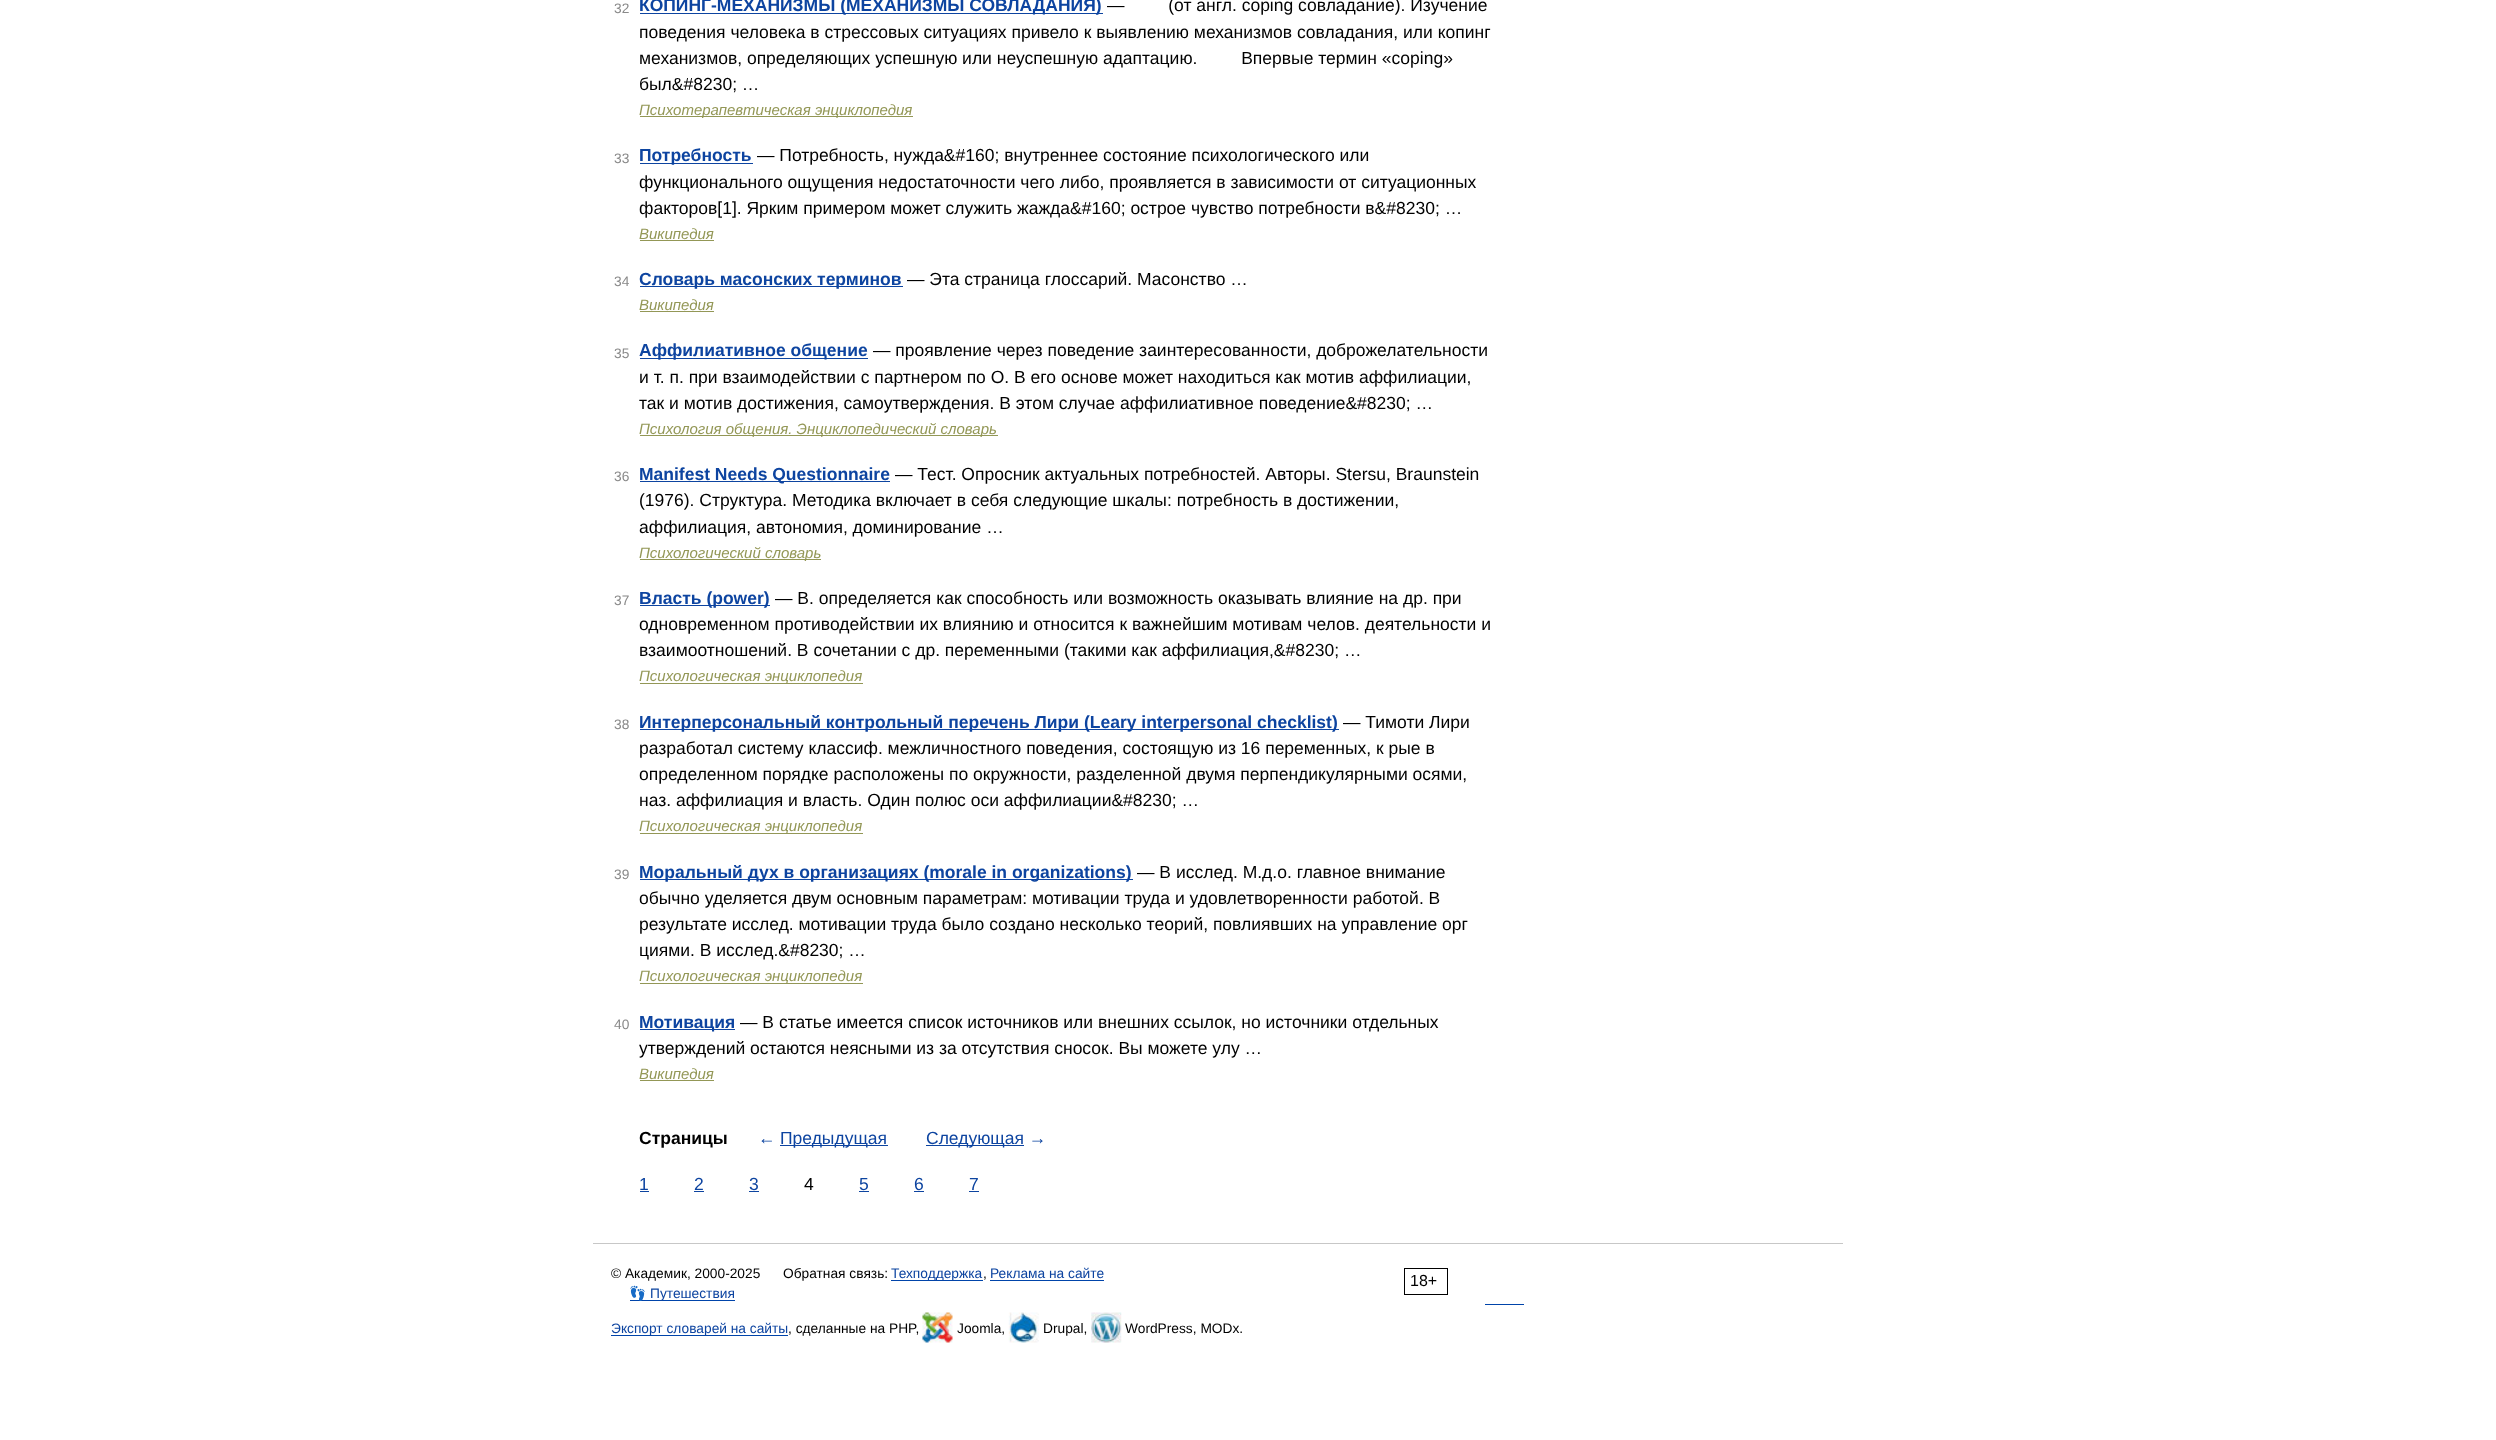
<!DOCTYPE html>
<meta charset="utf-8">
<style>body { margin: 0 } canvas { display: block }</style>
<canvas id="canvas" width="2496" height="1440"></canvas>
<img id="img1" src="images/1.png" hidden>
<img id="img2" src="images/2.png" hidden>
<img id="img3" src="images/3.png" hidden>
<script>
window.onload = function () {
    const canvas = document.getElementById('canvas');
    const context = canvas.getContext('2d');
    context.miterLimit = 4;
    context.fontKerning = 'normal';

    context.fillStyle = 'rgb(255, 255, 255)';
    context.fillRect(0, 0, 2496, 1440);
    context.fillStyle = 'rgb(13, 68, 160)';
    context.fillRect(640, 13, 463, 1);
    context.fillStyle = 'rgb(147, 151, 86)';
    context.fillRect(640, 116, 273, 1);
    context.fillStyle = 'rgb(13, 68, 160)';
    context.fillRect(640, 163, 113, 1);
    context.fillStyle = 'rgb(147, 151, 86)';
    context.fillRect(640, 240, 74, 1);
    context.fillStyle = 'rgb(13, 68, 160)';
    context.fillRect(640, 286, 263, 1);
    context.fillStyle = 'rgb(147, 151, 86)';
    context.fillRect(640, 311, 74, 1);
    context.fillStyle = 'rgb(13, 68, 160)';
    context.fillRect(640, 358, 228, 1);
    context.fillStyle = 'rgb(147, 151, 86)';
    context.fillRect(640, 435, 358, 1);
    context.fillStyle = 'rgb(13, 68, 160)';
    context.fillRect(640, 481, 250, 1);
    context.fillStyle = 'rgb(147, 151, 86)';
    context.fillRect(640, 559, 181, 1);
    context.fillStyle = 'rgb(13, 68, 160)';
    context.fillRect(640, 605, 130, 1);
    context.fillStyle = 'rgb(147, 151, 86)';
    context.fillRect(640, 683, 223, 1);
    context.fillStyle = 'rgb(13, 68, 160)';
    context.fillRect(640, 729, 699, 1);
    context.fillStyle = 'rgb(147, 151, 86)';
    context.fillRect(640, 833, 223, 1);
    context.fillStyle = 'rgb(13, 68, 160)';
    context.fillRect(640, 879, 493, 1);
    context.fillStyle = 'rgb(147, 151, 86)';
    context.fillRect(640, 983, 223, 1);
    context.fillStyle = 'rgb(13, 68, 160)';
    context.fillRect(640, 1029, 95, 1);
    context.fillStyle = 'rgb(147, 151, 86)';
    context.fillRect(640, 1080, 74, 1);
    context.fillStyle = 'rgb(13, 68, 160)';
    context.fillRect(780, 1145, 108, 1);
    context.fillRect(926, 1145, 98, 1);
    context.fillRect(640, 1191, 9, 1);
    context.fillRect(694, 1191, 10, 1);
    context.fillRect(749, 1191, 10, 1);
    context.fillRect(859, 1191, 10, 1);
    context.fillRect(914, 1191, 10, 1);
    context.fillRect(969, 1191, 10, 1);
    context.fillStyle = 'rgb(199, 199, 199)';
    context.fillRect(593, 1243, 1250, 1);
    context.fillStyle = 'rgb(0, 68, 170)';
    context.fillRect(891, 1280, 92, 1);
    context.fillRect(990, 1280, 114, 1);
    context.strokeStyle = 'rgb(0, 0, 0)';
    context.strokeRect(1404.5, 1268.5, 43, 26);
    context.fillRect(630, 1300, 105, 1);
    context.fillRect(1485, 1304, 39, 1);
    context.fillRect(611, 1335, 177, 1);
    context.drawImage(document.getElementById('img1'), 922, 1312, 31, 31);
    context.drawImage(document.getElementById('img2'), 1008, 1312, 31, 31);
    context.drawImage(document.getElementById('img3'), 1091, 1312, 31, 31);
    context.font = '13.75px Liberation Sans';
    context.fillStyle = 'rgb(137, 137, 137)';
    context.fillText('32', 614, 13);
    context.font = 'bold 17.5px Liberation Sans';
    context.fillStyle = 'rgb(13, 68, 160)';
    context.fillText('КОПИНГ-МЕХАНИЗМЫ (́МЕХАНИЗМЫ СОВЛАДАНИЯ)', 639, 11);
    context.font = '17.5px Liberation Sans';
    context.fillStyle = 'rgb(0, 0, 0)';
    context.fillText('—         (от англ. coping совладание). Изучение', 1107, 11);
    context.fillText('поведения человека в стрессовых ситуациях привело к выявлению механизмов совладания, или копинг', 639, 38);
    context.fillText('механизмов, определяющих успешную или неуспешную адаптацию.         Впервые термин «coping»', 639, 64);
    context.fillText('был&#8230; …', 639, 90);
    context.font = 'italic 15px Liberation Sans';
    context.fillStyle = 'rgb(147, 151, 86)';
    context.fillText('Психотерапевтическая энциклопедия', 639, 115);
    context.font = '13.75px Liberation Sans';
    context.fillStyle = 'rgb(137, 137, 137)';
    context.fillText('33', 614, 163);
    context.font = 'bold 17.5px Liberation Sans';
    context.fillStyle = 'rgb(13, 68, 160)';
    context.fillText('Потребность', 639, 161);
    context.font = '17.5px Liberation Sans';
    context.fillStyle = 'rgb(0, 0, 0)';
    context.fillText('— Потребность, нужда&#160; внутреннее состояние психологического или', 757, 161);
    context.fillText('функционального ощущения недостаточности чего либо, проявляется в зависимости от ситуационных', 639, 188);
    context.fillText('факторов[1]. Ярким примером может служить жажда&#160; острое чувство потребности в&#8230; …', 639, 214);
    context.font = 'italic 15px Liberation Sans';
    context.fillStyle = 'rgb(147, 151, 86)';
    context.fillText('Википедия', 639, 239);
    context.font = '13.75px Liberation Sans';
    context.fillStyle = 'rgb(137, 137, 137)';
    context.fillText('34', 614, 286);
    context.font = 'bold 17.5px Liberation Sans';
    context.fillStyle = 'rgb(13, 68, 160)';
    context.fillText('Словарь масонских терминов', 639, 285);
    context.font = '17.5px Liberation Sans';
    context.fillStyle = 'rgb(0, 0, 0)';
    context.fillText('— Эта страница глоссарий. Масонство …', 907, 285);
    context.font = 'italic 15px Liberation Sans';
    context.fillStyle = 'rgb(147, 151, 86)';
    context.fillText('Википедия', 639, 310);
    context.font = '13.75px Liberation Sans';
    context.fillStyle = 'rgb(137, 137, 137)';
    context.fillText('35', 614, 358);
    context.font = 'bold 17.5px Liberation Sans';
    context.fillStyle = 'rgb(13, 68, 160)';
    context.fillText('Аффилиативное общение', 639, 356);
    context.font = '17.5px Liberation Sans';
    context.fillStyle = 'rgb(0, 0, 0)';
    context.fillText('— проявление через поведение заинтересованности, доброжелательности', 873, 356);
    context.fillText('и т. п. при взаимодействии с партнером по О. В его основе может находиться как мотив аффилиации,', 639, 383);
    context.fillText('так и мотив достижения, самоутверждения. В этом случае аффилиативное поведение&#8230; …', 639, 409);
    context.font = 'italic 15px Liberation Sans';
    context.fillStyle = 'rgb(147, 151, 86)';
    context.fillText('Психология общения. Энциклопедический словарь', 639, 434);
    context.font = '13.75px Liberation Sans';
    context.fillStyle = 'rgb(137, 137, 137)';
    context.fillText('36', 614, 481);
    context.font = 'bold 17.5px Liberation Sans';
    context.fillStyle = 'rgb(13, 68, 160)';
    context.fillText('Manifest Needs Questionnaire', 639, 480);
    context.font = '17.5px Liberation Sans';
    context.fillStyle = 'rgb(0, 0, 0)';
    context.fillText('— Тест. Опросник актуальных потребностей. Авторы. Stersu, Braunstein', 895, 480);
    context.fillText('(1976). Структура. Методика включает в себя следующие шкалы: потребность в достижении,', 639, 506);
    context.fillText('аффилиация, автономия, доминирование …', 639, 533);
    context.font = 'italic 15px Liberation Sans';
    context.fillStyle = 'rgb(147, 151, 86)';
    context.fillText('Психологический словарь', 639, 558);
    context.font = '13.75px Liberation Sans';
    context.fillStyle = 'rgb(137, 137, 137)';
    context.fillText('37', 614, 605);
    context.font = 'bold 17.5px Liberation Sans';
    context.fillStyle = 'rgb(13, 68, 160)';
    context.fillText('Власть (power)', 639, 604);
    context.font = '17.5px Liberation Sans';
    context.fillStyle = 'rgb(0, 0, 0)';
    context.fillText('— В. определяется как способность или возможность оказывать влияние на др. при', 775, 604);
    context.fillText('одновременном противодействии их влиянию и относится к важнейшим мотивам челов. деятельности и', 639, 630);
    context.fillText('взаимоотношений. В сочетании с др. переменными (такими как аффилиация,&#8230; …', 639, 656);
    context.font = 'italic 15px Liberation Sans';
    context.fillStyle = 'rgb(147, 151, 86)';
    context.fillText('Психологическая энциклопедия', 639, 681);
    context.font = '13.75px Liberation Sans';
    context.fillStyle = 'rgb(137, 137, 137)';
    context.fillText('38', 614, 729);
    context.font = 'bold 17.5px Liberation Sans';
    context.fillStyle = 'rgb(13, 68, 160)';
    context.fillText('Интерперсональный контрольный перечень Лири (Learу interpersonal checklist)', 639, 728);
    context.font = '17.5px Liberation Sans';
    context.fillStyle = 'rgb(0, 0, 0)';
    context.fillText('— Тимоти Лири', 1343, 728);
    context.fillText('разработал систему классиф. межличностного поведения, состоящую из 16 переменных, к рые в', 639, 754);
    context.fillText('определенном порядке расположены по окружности, разделенной двумя перпендикулярными осями,', 639, 780);
    context.fillText('наз. аффилиация и власть. Один полюс оси аффилиации&#8230; …', 639, 806);
    context.font = 'italic 15px Liberation Sans';
    context.fillStyle = 'rgb(147, 151, 86)';
    context.fillText('Психологическая энциклопедия', 639, 831);
    context.font = '13.75px Liberation Sans';
    context.fillStyle = 'rgb(137, 137, 137)';
    context.fillText('39', 614, 879);
    context.font = 'bold 17.5px Liberation Sans';
    context.fillStyle = 'rgb(13, 68, 160)';
    context.fillText('Моральный дух в организациях (morale in organizations)', 639, 878);
    context.font = '17.5px Liberation Sans';
    context.fillStyle = 'rgb(0, 0, 0)';
    context.fillText('— В исслед. М.д.о. главное внимание', 1137, 878);
    context.fillText('обычно уделяется двум основным параметрам: мотивации труда и удовлетворенности работой. В', 639, 904);
    context.fillText('результате исслед. мотивации труда было создано несколько теорий, повлиявших на управление орг', 639, 930);
    context.fillText('циями. В исслед.&#8230; …', 639, 956);
    context.font = 'italic 15px Liberation Sans';
    context.fillStyle = 'rgb(147, 151, 86)';
    context.fillText('Психологическая энциклопедия', 639, 981);
    context.font = '13.75px Liberation Sans';
    context.fillStyle = 'rgb(137, 137, 137)';
    context.fillText('40', 614, 1029);
    context.font = 'bold 17.5px Liberation Sans';
    context.fillStyle = 'rgb(13, 68, 160)';
    context.fillText('Мотивация', 639, 1028);
    context.font = '17.5px Liberation Sans';
    context.fillStyle = 'rgb(0, 0, 0)';
    context.fillText('— В статье имеется список источников или внешних ссылок, но источники отдельных', 740, 1028);
    context.fillText('утверждений остаются неясными из за отсутствия сносок. Вы можете улу …', 639, 1054);
    context.font = 'italic 15px Liberation Sans';
    context.fillStyle = 'rgb(147, 151, 86)';
    context.fillText('Википедия', 639, 1079);
    context.font = 'bold 17.5px Liberation Sans';
    context.fillStyle = 'rgb(0, 0, 0)';
    context.fillText('Страницы', 639, 1144);
    context.font = '17.5px Liberation Sans';
    context.fillStyle = 'rgb(13, 68, 160)';
    context.fillText('←', 758, 1144);
    context.fillText('Предыдущая', 780, 1144);
    context.fillText('Следующая →', 926, 1144);
    context.fillText('1', 639, 1190);
    context.fillText('2', 694, 1190);
    context.fillText('3', 749, 1190);
    context.fillStyle = 'rgb(0, 0, 0)';
    context.fillText('4', 804, 1190);
    context.fillStyle = 'rgb(13, 68, 160)';
    context.fillText('5', 859, 1190);
    context.fillText('6', 914, 1190);
    context.fillText('7', 969, 1190);
    context.font = '13.75px Liberation Sans';
    context.fillStyle = 'rgb(0, 0, 0)';
    context.fillText('© Академик, 2000-2025', 611, 1278);
    context.fillText('Обратная связь:', 783, 1278);
    context.fillStyle = 'rgb(13, 68, 160)';
    context.fillText('Техподдержка', 891, 1278);
    context.fillStyle = 'rgb(0, 0, 0)';
    context.fillText(',', 983, 1278);
    context.fillStyle = 'rgb(13, 68, 160)';
    context.fillText('Реклама на сайте', 990, 1278);
    context.font = '16px Liberation Sans';
    context.fillStyle = 'rgb(0, 0, 0)';
    context.fillText('18+', 1410, 1286);
    context.font = '13.75px Noto Color Emoji';
    context.fillStyle = 'rgb(13, 68, 160)';
    context.fillText('👣', 629, 1298);
    context.font = '13.75px Liberation Sans';
    context.fillText('Путешествия', 650, 1298);
    context.fillText('Экспорт словарей на сайты', 611, 1333);
    context.fillStyle = 'rgb(0, 0, 0)';
    context.fillText(', сделанные на PHP,', 788, 1333);
    context.fillText('Joomla,', 957, 1333);
    context.fillText('Drupal,', 1043, 1333);
    context.fillText('WordPress, MODx.', 1125, 1333);
};
</script>
